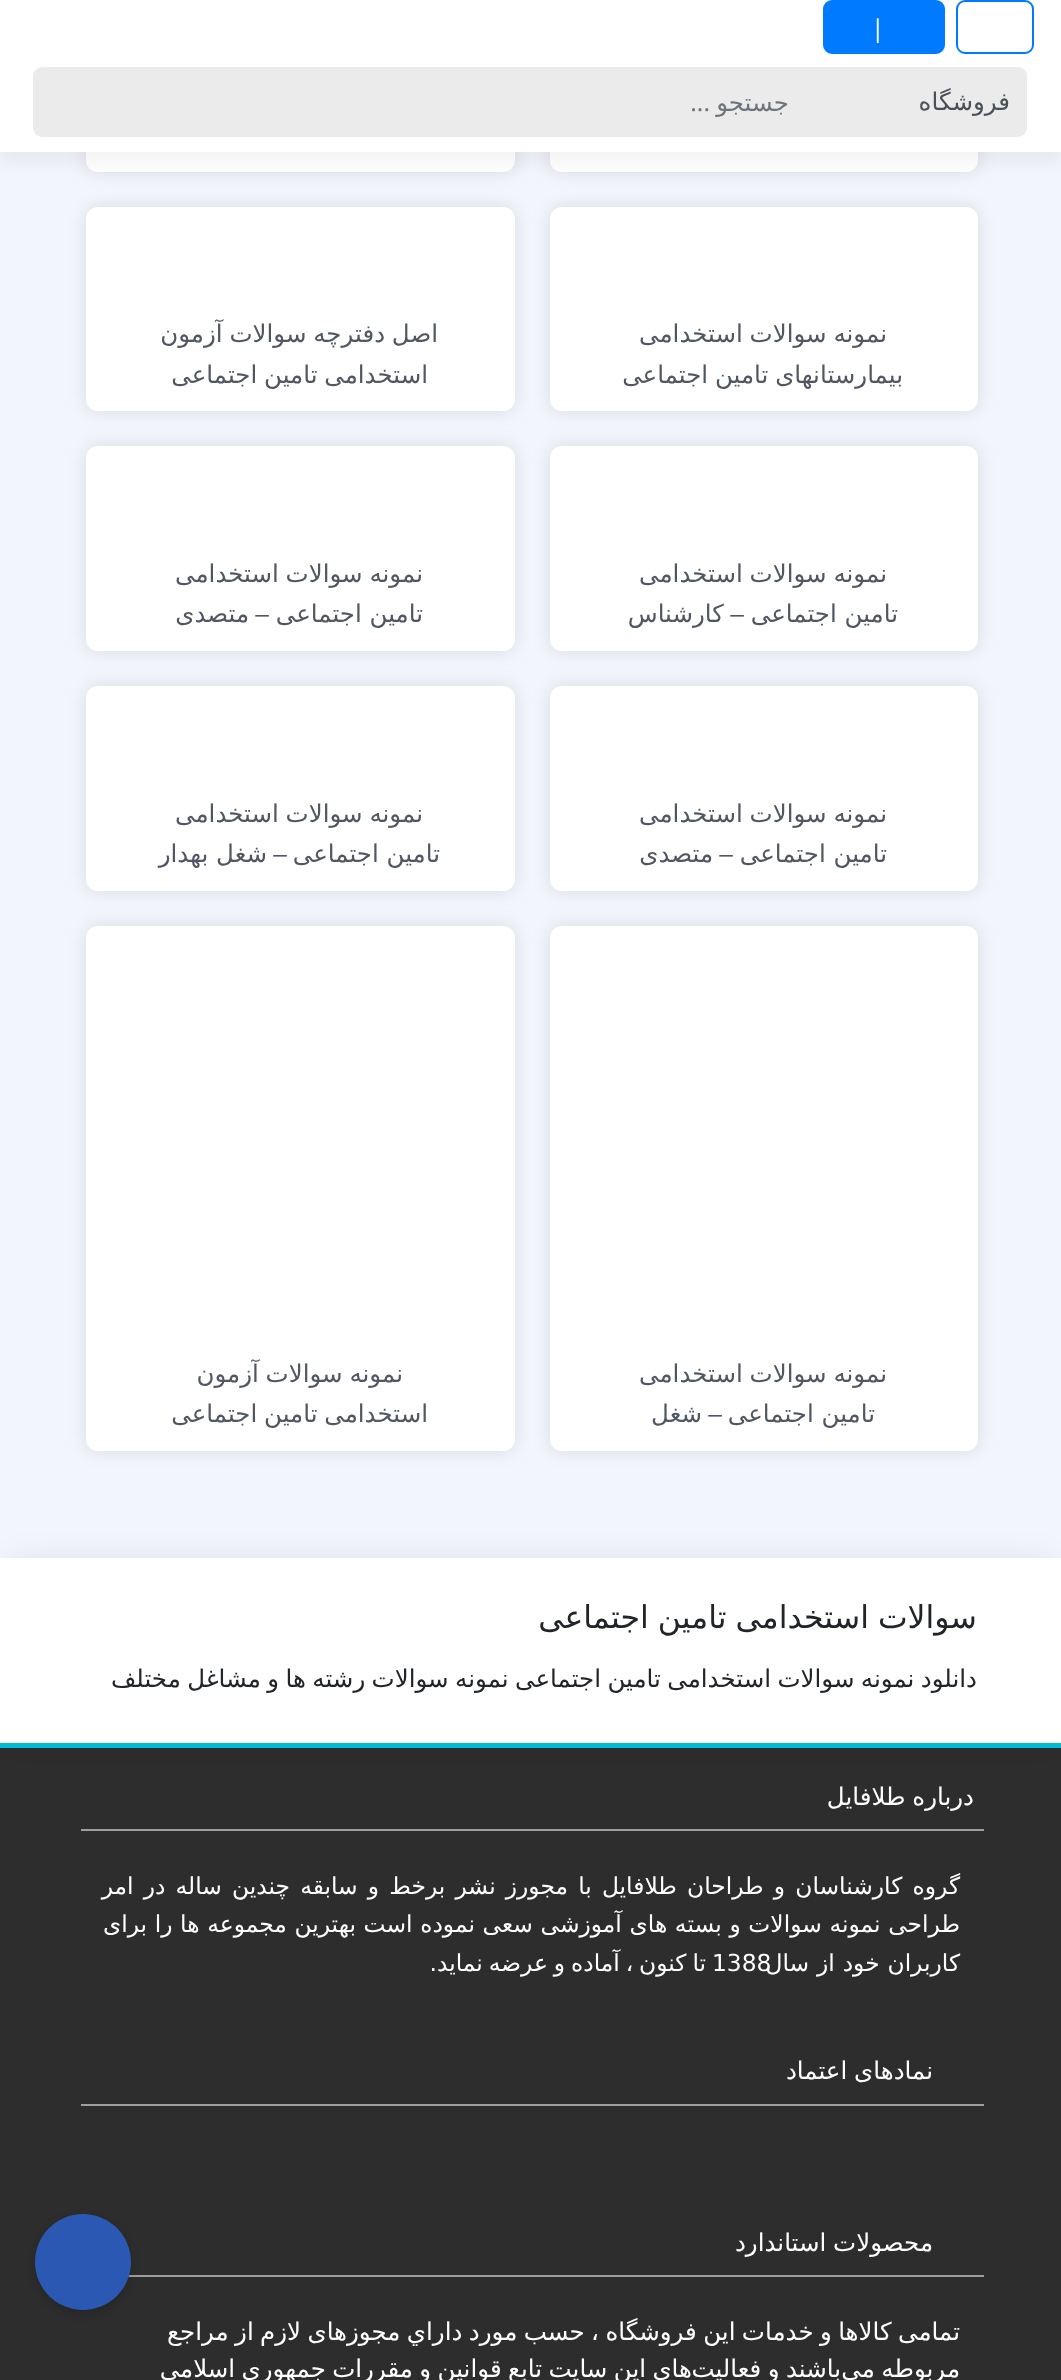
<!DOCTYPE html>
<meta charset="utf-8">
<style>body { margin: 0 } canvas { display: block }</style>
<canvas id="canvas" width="1061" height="2380"></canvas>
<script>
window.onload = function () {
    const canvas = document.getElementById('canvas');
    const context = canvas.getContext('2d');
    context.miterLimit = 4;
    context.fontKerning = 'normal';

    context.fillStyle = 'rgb(242, 246, 252)';
    context.fillRect(0, 0, 1061, 2380);
    context.fillStyle = 'rgba(0, 0, 0, 0.1)';
    context.filter = 'blur(9px)';
    context.beginPath();
    context.roundRect(550, -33, 428, 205, 12);
    context.fill();
    context.filter = 'none';
    context.fillStyle = 'rgb(255, 255, 255)';
    context.beginPath();
    context.roundRect(550, -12, 428, 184, 12);
    context.fill();
    context.fillStyle = 'rgba(0, 0, 0, 0.1)';
    context.filter = 'blur(9px)';
    context.beginPath();
    context.roundRect(86, -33, 429, 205, 12);
    context.fill();
    context.filter = 'none';
    context.fillStyle = 'rgb(255, 255, 255)';
    context.beginPath();
    context.roundRect(86, -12, 429, 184, 12);
    context.fill();
    context.fillStyle = 'rgba(0, 0, 0, 0.04)';
    context.filter = 'blur(7px)';
    context.beginPath();
    context.rect(0, 12, 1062, 153);
    context.fill();
    context.filter = 'none';
    context.fillStyle = 'rgb(255, 255, 255)';
    context.fillRect(0, 0, 1061, 152);
    context.beginPath();
    context.roundRect(957, 1, 76, 52, 8);
    context.strokeStyle = 'rgb(0, 123, 255)';
    context.lineWidth = 2;
    context.stroke();
    context.fillStyle = 'rgb(0, 123, 255)';
    context.beginPath();
    context.roundRect(824, 1, 120, 52, 8);
    context.fill();
    context.stroke();
    context.fillStyle = 'rgb(235, 235, 235)';
    context.beginPath();
    context.roundRect(817, 67, 210, 70, [0, 9, 9, 0]);
    context.fill();
    context.fillRect(98, 67, 719, 70);
    context.beginPath();
    context.roundRect(33, 67, 65, 70, [9, 0, 0, 9]);
    context.fill();
    context.fillStyle = 'rgba(0, 0, 0, 0.1)';
    context.filter = 'blur(9px)';
    context.beginPath();
    context.roundRect(550, 207, 428, 204, 12);
    context.fill();
    context.filter = 'none';
    context.fillStyle = 'rgb(255, 255, 255)';
    context.beginPath();
    context.roundRect(550, 207, 428, 204, 12);
    context.fill();
    context.fillStyle = 'rgba(0, 0, 0, 0.1)';
    context.filter = 'blur(9px)';
    context.beginPath();
    context.roundRect(86, 207, 429, 204, 12);
    context.fill();
    context.filter = 'none';
    context.fillStyle = 'rgb(255, 255, 255)';
    context.beginPath();
    context.roundRect(86, 207, 429, 204, 12);
    context.fill();
    context.fillStyle = 'rgba(0, 0, 0, 0.1)';
    context.filter = 'blur(9px)';
    context.beginPath();
    context.roundRect(550, 446, 428, 205, 12);
    context.fill();
    context.filter = 'none';
    context.fillStyle = 'rgb(255, 255, 255)';
    context.beginPath();
    context.roundRect(550, 446, 428, 205, 12);
    context.fill();
    context.fillStyle = 'rgba(0, 0, 0, 0.1)';
    context.filter = 'blur(9px)';
    context.beginPath();
    context.roundRect(86, 446, 429, 205, 12);
    context.fill();
    context.filter = 'none';
    context.fillStyle = 'rgb(255, 255, 255)';
    context.beginPath();
    context.roundRect(86, 446, 429, 205, 12);
    context.fill();
    context.fillStyle = 'rgba(0, 0, 0, 0.1)';
    context.filter = 'blur(9px)';
    context.beginPath();
    context.roundRect(550, 686, 428, 205, 12);
    context.fill();
    context.filter = 'none';
    context.fillStyle = 'rgb(255, 255, 255)';
    context.beginPath();
    context.roundRect(550, 686, 428, 205, 12);
    context.fill();
    context.fillStyle = 'rgba(0, 0, 0, 0.1)';
    context.filter = 'blur(9px)';
    context.beginPath();
    context.roundRect(86, 686, 429, 205, 12);
    context.fill();
    context.filter = 'none';
    context.fillStyle = 'rgb(255, 255, 255)';
    context.beginPath();
    context.roundRect(86, 686, 429, 205, 12);
    context.fill();
    context.fillStyle = 'rgba(0, 0, 0, 0.1)';
    context.filter = 'blur(9px)';
    context.beginPath();
    context.roundRect(550, 926, 428, 525, 12);
    context.fill();
    context.filter = 'none';
    context.fillStyle = 'rgb(255, 255, 255)';
    context.beginPath();
    context.roundRect(550, 926, 428, 525, 12);
    context.fill();
    context.fillStyle = 'rgba(0, 0, 0, 0.1)';
    context.filter = 'blur(9px)';
    context.beginPath();
    context.roundRect(86, 926, 429, 525, 12);
    context.fill();
    context.filter = 'none';
    context.fillStyle = 'rgb(255, 255, 255)';
    context.beginPath();
    context.roundRect(86, 926, 429, 525, 12);
    context.fill();
    context.fillStyle = 'rgb(45, 45, 45)';
    context.fillRect(0, 1748, 1061, 632);
    context.fillStyle = 'rgba(0, 0, 0, 0.12)';
    context.filter = 'blur(17.5px)';
    context.beginPath();
    context.rect(11, 1566, 1041, 165);
    context.fill();
    context.filter = 'none';
    context.fillStyle = 'rgb(255, 255, 255)';
    context.fillRect(0, 1558, 1061, 185);
    context.fillStyle = 'rgb(0, 188, 212)';
    context.fillRect(0, 1743, 1061, 5);
    context.fillStyle = 'rgb(158, 158, 158)';
    context.fillRect(81, 1829, 903, 2);
    context.fillRect(81, 2104, 903, 2);
    context.fillRect(128, 2275, 856, 2);
    context.fillStyle = 'rgba(0, 0, 0, 0.16)';
    context.filter = 'blur(4.5px)';
    context.beginPath();
    context.roundRect(35, 2217, 96, 97, 48);
    context.fill();
    context.filter = 'none';
    context.fillStyle = 'rgb(43, 88, 179)';
    context.beginPath();
    context.arc(83, 2262, 48, 0, 2 * Math.PI);
    context.fill();
    context.font = '24.5px Noto Sans';
    context.fillStyle = 'rgb(255, 255, 255)';
    context.fillText('|', 871, 37);
    context.direction = 'rtl';
    context.font = '24.5px DejaVu Sans';
    context.fillStyle = 'rgb(73, 80, 87)';
    context.fillText('فروشگاه', 1010, 110);
    context.fillStyle = 'rgb(108, 117, 125)';
    context.fillText('جستجو', 789, 111);
    context.font = '24.5px Noto Sans';
    context.fillText('...', 710, 111);
    context.wordSpacing = '-1px';
    context.font = '24.5px DejaVu Sans';
    context.fillStyle = 'rgb(80, 87, 99)';
    context.fillText('نمونه سوالات استخدامی', 887, 342);
    context.fillText('بیمارستانهای تامین اجتماعی', 903, 383);
    context.fillText('اصل دفترچه سوالات آزمون', 438, 342);
    context.fillText('استخدامی تامین اجتماعی', 428, 383);
    context.fillText('نمونه سوالات استخدامی', 887, 582);
    context.wordSpacing = '0px';
    context.fillText('تامین اجتماعی', 898, 622);
    context.font = '24.5px Liberation Sans';
    context.fillText('–', 744, 622);
    context.font = '24.5px DejaVu Sans';
    context.fillText('کارشناس', 724, 622);
    context.wordSpacing = '-1px';
    context.fillText('نمونه سوالات استخدامی', 423, 582);
    context.wordSpacing = '0px';
    context.fillText('تامین اجتماعی', 423, 622);
    context.font = '24.5px Liberation Sans';
    context.fillText('–', 269, 622);
    context.font = '24.5px DejaVu Sans';
    context.fillText('متصدی', 249, 622);
    context.wordSpacing = '-1px';
    context.fillText('نمونه سوالات استخدامی', 887, 822);
    context.wordSpacing = '0px';
    context.fillText('تامین اجتماعی', 887, 862);
    context.font = '24.5px Liberation Sans';
    context.fillText('–', 733, 862);
    context.font = '24.5px DejaVu Sans';
    context.fillText('متصدی', 713, 862);
    context.wordSpacing = '-1px';
    context.fillText('نمونه سوالات استخدامی', 423, 822);
    context.wordSpacing = '0px';
    context.fillText('تامین اجتماعی', 440, 862);
    context.font = '24.5px Liberation Sans';
    context.fillText('–', 287, 862);
    context.font = '24.5px DejaVu Sans';
    context.fillText('شغل بهدار', 267, 862);
    context.wordSpacing = '-1px';
    context.fillText('نمونه سوالات استخدامی', 887, 1382);
    context.wordSpacing = '0px';
    context.fillText('تامین اجتماعی', 875, 1422);
    context.font = '24.5px Liberation Sans';
    context.fillText('–', 722, 1422);
    context.font = '24.5px DejaVu Sans';
    context.fillText('شغل', 702, 1422);
    context.wordSpacing = '-1px';
    context.fillText('نمونه سوالات آزمون', 403, 1382);
    context.fillText('استخدامی تامین اجتماعی', 428, 1422);
    context.font = '31.5px DejaVu Sans';
    context.fillStyle = 'rgb(33, 37, 41)';
    context.fillText('سوالات استخدامی تامین اجتماعی', 977, 1628);
    context.wordSpacing = '-1.4px';
    context.font = '24.5px DejaVu Sans';
    context.fillText('دانلود نمونه سوالات استخدامی تامین اجتماعی نمونه سوالات رشته ها و مشاغل مختلف', 977, 1687);
    context.wordSpacing = '-1px';
    context.fillStyle = 'rgb(255, 255, 255)';
    context.fillText('درباره طلافایل', 974, 1805);
    context.wordSpacing = '2.75px';
    context.font = '23.35px DejaVu Sans';
    context.fillText('گروه کارشناسان و طراحان طلافایل با مجورز نشر برخط و سابقه چندین ساله در امر', 960, 1894);
    context.wordSpacing = '0.25px';
    context.fillText('طراحی نمونه سوالات و بسته های آموزشی سعی نموده است بهترین مجموعه ها را برای', 960, 1932);
    context.wordSpacing = '0px';
    context.direction = 'ltr';
    context.fillText('1388', 712, 1971);
    context.wordSpacing = '0.5px';
    context.direction = 'rtl';
    context.fillText('کاربران خود از سال', 960, 1971);
    context.wordSpacing = '-1.5px';
    context.fillText('تا کنون ، آماده و عرضه نماید.', 706, 1971);
    context.wordSpacing = '-1px';
    context.font = '24.5px DejaVu Sans';
    context.fillText('نمادهای اعتماد', 933, 2079);
    context.fillText('محصولات استاندارد', 933, 2251);
    context.wordSpacing = '-1.4px';
    context.fillText('تمامی كالاها و خدمات اين فروشگاه ، حسب مورد داراي مجوزهای لازم از مراجع', 960, 2340);
    context.fillText('مربوطه مي', 960, 2377);
    context.fillText('باشند و فعاليت', 841, 2377);
    context.fillText('هاي اين سايت تابع قوانين و مقررات جمهوري اسلامي', 692, 2377);
};
</script>
